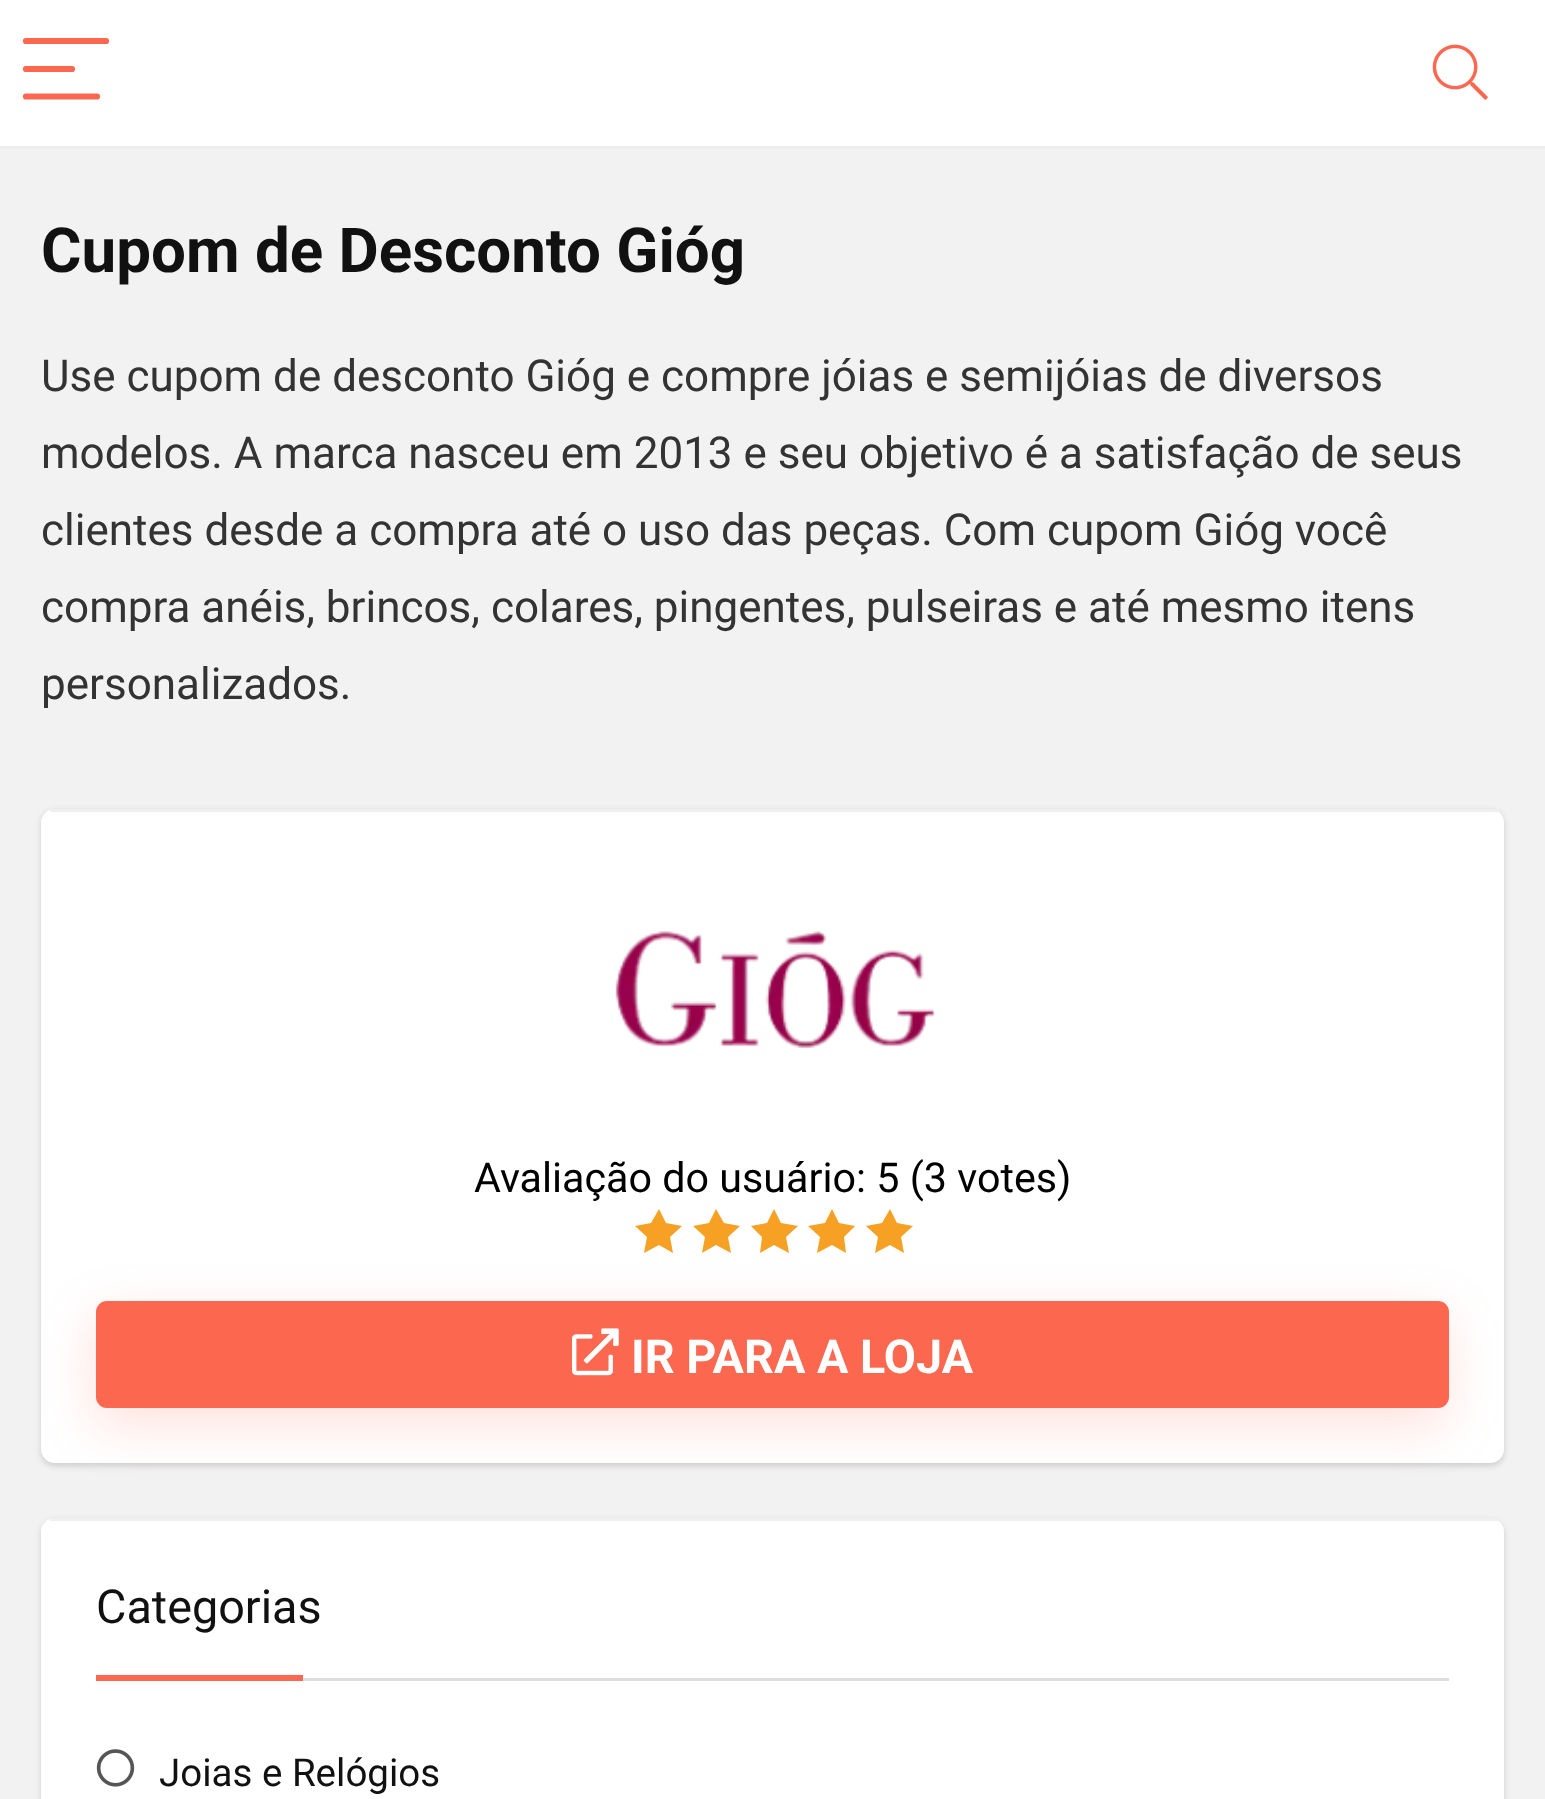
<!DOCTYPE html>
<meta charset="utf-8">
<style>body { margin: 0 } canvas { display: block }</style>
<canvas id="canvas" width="1545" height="1799"></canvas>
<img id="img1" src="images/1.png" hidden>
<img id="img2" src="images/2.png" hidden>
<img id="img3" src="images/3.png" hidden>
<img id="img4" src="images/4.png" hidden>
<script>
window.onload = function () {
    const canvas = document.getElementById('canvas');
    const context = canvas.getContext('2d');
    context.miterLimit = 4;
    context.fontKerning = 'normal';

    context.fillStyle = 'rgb(242, 242, 242)';
    context.fillRect(0, 0, 1545, 1799);
    context.fillStyle = 'rgb(255, 255, 255)';
    context.fillRect(0, 0, 1545, 146);
    context.fillStyle = 'rgb(238, 238, 238)';
    context.fillRect(0, 146, 1545, 3);
    context.beginPath();
    context.moveTo(26, 41);
    context.lineTo(106, 41);
    context.strokeStyle = 'rgb(252, 103, 80)';
    context.lineWidth = 6.2;
    context.lineCap = 'round';
    context.stroke();
    context.beginPath();
    context.moveTo(26, 69);
    context.lineTo(72, 69);
    context.stroke();
    context.beginPath();
    context.moveTo(26, 96.5);
    context.lineTo(97, 96.5);
    context.stroke();
    context.drawImage(document.getElementById('img1'), 1432, 44, 56, 56);
    context.fillStyle = 'rgba(0, 0, 0, 0.15)';
    context.filter = 'blur(3px)';
    context.beginPath();
    context.roundRect(41, 811, 1463, 655, 14);
    context.fill();
    context.filter = 'none';
    context.fillStyle = 'rgb(255, 255, 255)';
    context.beginPath();
    context.roundRect(41, 809, 1463, 654, 14);
    context.fill();
    context.fillStyle = 'rgb(239, 239, 239)';
    context.fillRect(50, 809, 1449, 3);
    context.drawImage(document.getElementById('img2'), 615, 931, 320, 118);
    context.fillStyle = 'rgb(246, 161, 35)';
    context.beginPath();
    context.moveTo(682, 1226);
    context.lineTo(666, 1223);
    context.lineTo(659, 1209);
    context.lineTo(651, 1223);
    context.lineTo(635, 1226);
    context.lineTo(647, 1237);
    context.lineTo(644, 1253);
    context.lineTo(659, 1245);
    context.lineTo(673, 1253);
    context.lineTo(670, 1237);
    context.closePath();
    context.fill();
    context.beginPath();
    context.moveTo(740, 1226);
    context.lineTo(724, 1223);
    context.lineTo(716, 1209);
    context.lineTo(709, 1223);
    context.lineTo(693, 1226);
    context.lineTo(705, 1237);
    context.lineTo(702, 1253);
    context.lineTo(716, 1245);
    context.lineTo(731, 1253);
    context.lineTo(728, 1237);
    context.closePath();
    context.fill();
    context.beginPath();
    context.moveTo(798, 1226);
    context.lineTo(781, 1223);
    context.lineTo(774, 1209);
    context.lineTo(767, 1223);
    context.lineTo(751, 1226);
    context.lineTo(762, 1237);
    context.lineTo(760, 1253);
    context.lineTo(774, 1245);
    context.lineTo(789, 1253);
    context.lineTo(786, 1237);
    context.closePath();
    context.fill();
    context.beginPath();
    context.moveTo(855, 1226);
    context.lineTo(839, 1223);
    context.lineTo(832, 1209);
    context.lineTo(825, 1223);
    context.lineTo(808, 1226);
    context.lineTo(820, 1237);
    context.lineTo(817, 1253);
    context.lineTo(832, 1245);
    context.lineTo(846, 1253);
    context.lineTo(844, 1237);
    context.closePath();
    context.fill();
    context.beginPath();
    context.moveTo(913, 1226);
    context.lineTo(897, 1223);
    context.lineTo(890, 1209);
    context.lineTo(882, 1223);
    context.lineTo(866, 1226);
    context.lineTo(878, 1237);
    context.lineTo(875, 1253);
    context.lineTo(890, 1245);
    context.lineTo(904, 1253);
    context.lineTo(901, 1237);
    context.closePath();
    context.fill();
    context.fillStyle = 'rgba(252, 103, 80, 0.2)';
    context.filter = 'blur(26px)';
    context.beginPath();
    context.roundRect(94, 1317, 1353, 108, 11);
    context.fill();
    context.filter = 'none';
    context.fillStyle = 'rgb(252, 103, 80)';
    context.beginPath();
    context.roundRect(96, 1301, 1353, 107, 11);
    context.fill();
    context.drawImage(document.getElementById('img3'), 572, 1328, 47, 48);
    context.fillStyle = 'rgba(0, 0, 0, 0.15)';
    context.filter = 'blur(3px)';
    context.beginPath();
    context.roundRect(41, 1521, 1463, 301, 14);
    context.fill();
    context.filter = 'none';
    context.fillStyle = 'rgb(255, 255, 255)';
    context.beginPath();
    context.roundRect(41, 1518, 1463, 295, 14);
    context.fill();
    context.fillStyle = 'rgb(239, 239, 239)';
    context.fillRect(50, 1518, 1449, 3);
    context.fillStyle = 'rgb(221, 221, 221)';
    context.fillRect(303, 1678, 1146, 3);
    context.fillStyle = 'rgb(252, 103, 80)';
    context.fillRect(96, 1675, 207, 6);
    context.drawImage(document.getElementById('img4'), 96, 1749, 39, 38);
    context.font = 'bold 61.9px Roboto';
    context.fillStyle = 'rgb(17, 17, 17)';
    context.fillText('Cupom de Desconto Gióg', 41, 272);
    context.font = '44px Roboto';
    context.fillStyle = 'rgb(51, 51, 51)';
    context.fillText('Use cupom de desconto Gióg e compre jóias e semijóias de diversos', 41, 391);
    context.fillText('modelos. A marca nasceu em 2013 e seu objetivo é a satisfação de seus', 41, 468);
    context.fillText('clientes desde a compra até o uso das peças. Com cupom Gióg você', 41, 545);
    context.fillText('compra anéis, brincos, colares, pingentes, pulseiras e até mesmo itens', 41, 622);
    context.fillText('personalizados.', 41, 699);
    context.font = '41.25px Roboto';
    context.fillStyle = 'rgb(0, 0, 0)';
    context.fillText('Avaliação do usuário: 5 (3 votes)', 474, 1192);
    context.font = 'bold 46.75px Roboto';
    context.fillStyle = 'rgb(255, 255, 255)';
    context.fillText('IR PARA A LOJA', 631, 1373);
    context.font = '46.75px Roboto';
    context.fillStyle = 'rgb(17, 17, 17)';
    context.fillText('Categorias', 96, 1623);
    context.font = '38.5px Roboto';
    context.fillText('Joias e Relógios', 159, 1786);
};
</script>
